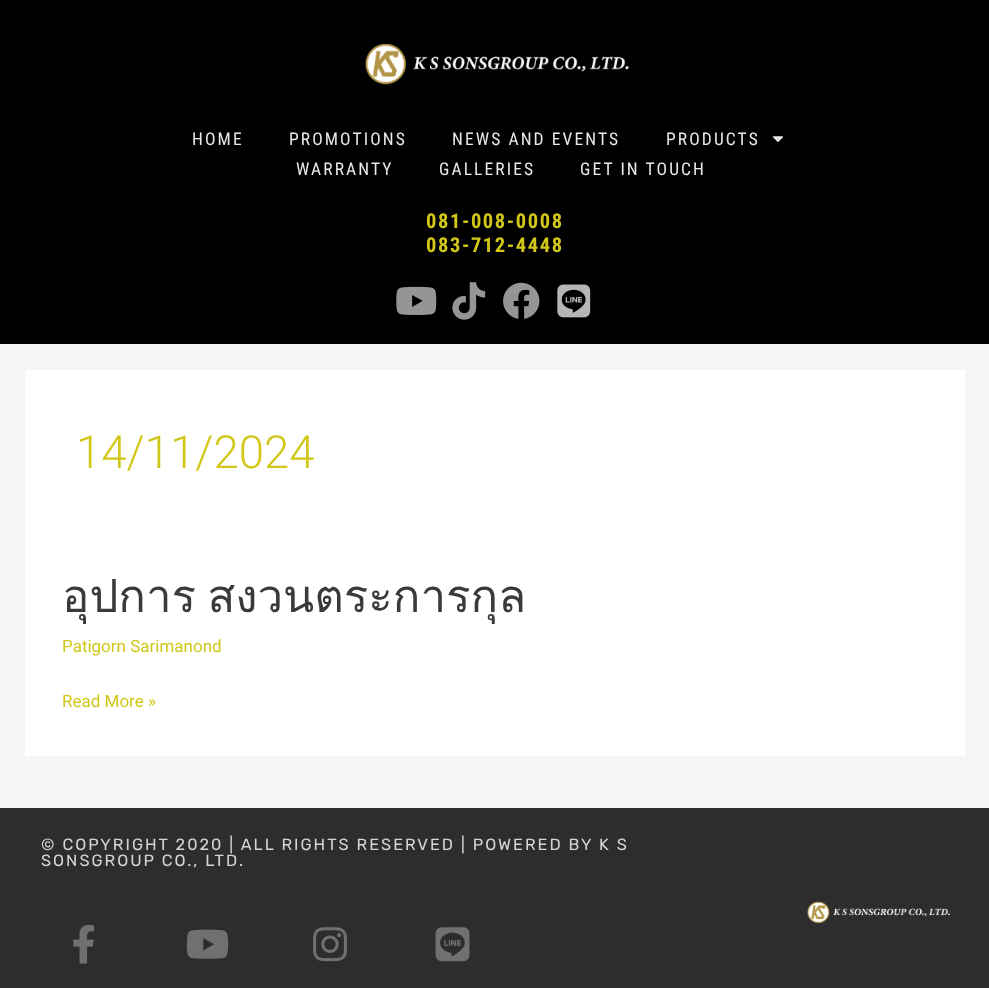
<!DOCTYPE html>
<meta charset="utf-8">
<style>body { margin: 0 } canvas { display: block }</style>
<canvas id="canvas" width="989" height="988"></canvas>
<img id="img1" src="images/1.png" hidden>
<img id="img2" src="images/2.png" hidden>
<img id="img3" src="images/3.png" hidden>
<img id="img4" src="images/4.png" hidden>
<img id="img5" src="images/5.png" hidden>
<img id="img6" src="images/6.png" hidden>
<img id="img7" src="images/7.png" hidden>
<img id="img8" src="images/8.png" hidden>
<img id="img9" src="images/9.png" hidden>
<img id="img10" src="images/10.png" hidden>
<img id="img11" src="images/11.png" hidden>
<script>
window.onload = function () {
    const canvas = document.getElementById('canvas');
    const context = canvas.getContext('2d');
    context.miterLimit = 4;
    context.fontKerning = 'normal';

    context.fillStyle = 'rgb(245, 245, 245)';
    context.fillRect(0, 0, 989, 988);
    context.fillStyle = 'rgb(0, 0, 0)';
    context.fillRect(0, 0, 989, 344);
    context.drawImage(document.getElementById('img1'), 365, 44, 265, 41);
    context.drawImage(document.getElementById('img2'), 772, 136, 11, 6);
    context.drawImage(document.getElementById('img3'), 396, 286, 41, 29);
    context.drawImage(document.getElementById('img4'), 452, 282, 34, 38);
    context.drawImage(document.getElementById('img5'), 503, 282, 37, 37);
    context.drawImage(document.getElementById('img6'), 557, 284, 34, 34);
    context.fillStyle = 'rgb(255, 255, 255)';
    context.fillRect(25, 370, 940, 386);
    context.fillStyle = 'rgb(45, 45, 45)';
    context.fillRect(0, 808, 989, 180);
    context.drawImage(document.getElementById('img7'), 73, 924, 22, 40);
    context.drawImage(document.getElementById('img8'), 186, 929, 43, 30);
    context.drawImage(document.getElementById('img9'), 313, 927, 34, 35);
    context.drawImage(document.getElementById('img10'), 435, 927, 35, 35);
    context.drawImage(document.getElementById('img11'), 807, 901, 144, 23);
    context.letterSpacing = '2.1px';
    context.font = '17.5px Roboto Condensed';
    context.fillStyle = 'rgb(232, 232, 232)';
    context.fillText('HOME', 192, 145);
    context.fillText('PROMOTIONS', 289, 145);
    context.fillText('NEWS AND EVENTS', 452, 145);
    context.fillText('PRODUCTS', 666, 145);
    context.fillText('WARRANTY', 296, 175);
    context.fillText('GALLERIES', 439, 175);
    context.fillText('GET IN TOUCH', 580, 175);
    context.letterSpacing = '1.6px';
    context.font = 'bold 20.5px Roboto Condensed';
    context.fillStyle = 'rgb(209, 199, 25)';
    context.fillText('081-008-0008', 426, 228);
    context.fillText('083-712-4448', 426, 252);
    context.letterSpacing = '0px';
    context.font = '300 45.6px Roboto';
    context.fillText('14/11/2024', 76, 468);
    context.save();
    context.beginPath();
    context.rect(61, 566, 868, 165);
    context.clip();
    context.wordSpacing = '-4px';
    context.font = '45.6px Loma';
    context.fillStyle = 'rgb(58, 58, 58)';
    context.fillText('อุปการ สงวนตระการกุล', 62, 612);
    context.restore();
    context.font = '17px Roboto';
    context.fillText('Patigorn Sarimanond', 62, 652);
    context.fillText('Read More »', 62, 707);
    context.letterSpacing = '2px';
    context.font = '16.25px Rubik';
    context.fillStyle = 'rgb(213, 213, 213)';
    context.fillText('© COPYRIGHT 2020 | ALL RIGHTS RESERVED | POWERED BY K S', 41, 850);
    context.fillText('SONSGROUP CO., LTD.', 41, 866);
};
</script>
